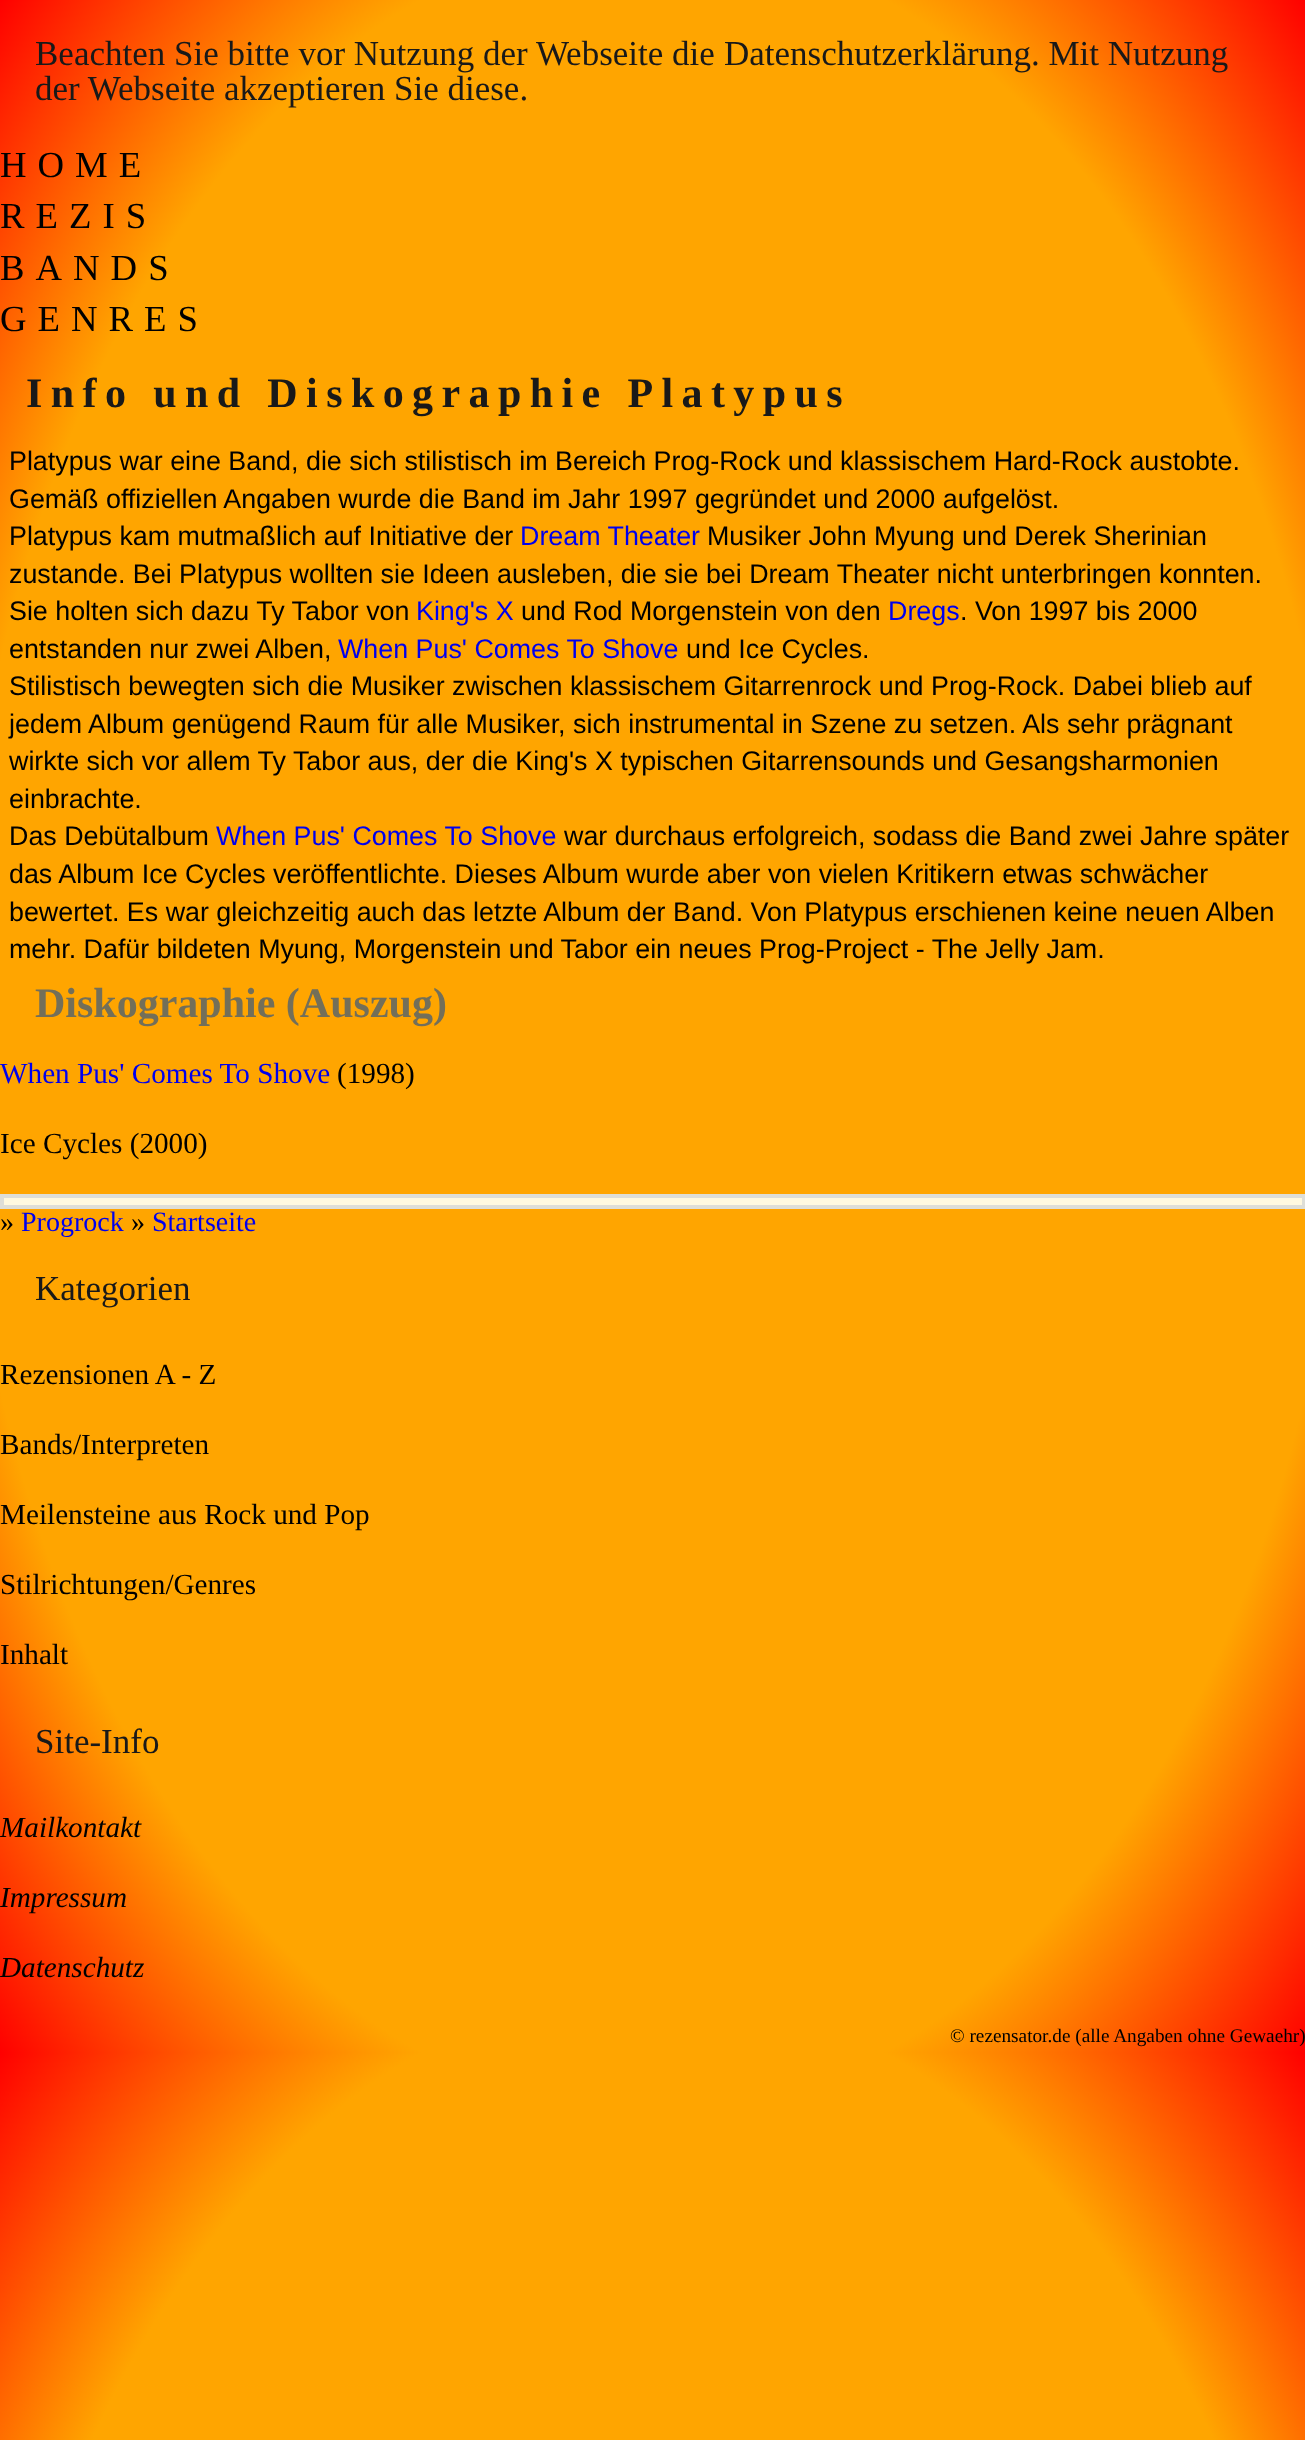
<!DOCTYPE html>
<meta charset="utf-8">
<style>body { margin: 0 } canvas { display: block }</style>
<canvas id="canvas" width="1305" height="2440"></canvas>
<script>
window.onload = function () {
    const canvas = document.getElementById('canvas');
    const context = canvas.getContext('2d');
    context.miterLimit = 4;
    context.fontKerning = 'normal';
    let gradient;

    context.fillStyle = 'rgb(255, 255, 255)';
    context.fillRect(0, 0, 1305, 2440);
    gradient = context.createRadialGradient(653, 652.2, 0, 653, 652.2, 923);
    gradient.addColorStop(0.75, 'rgb(255, 165, 0)');
    gradient.addColorStop(1, 'rgb(255, 0, 0)');
    context.fillStyle = gradient;
    context.beginPath();
    context.rect(0, 0, 1305, 2053);
    context.save();
    context.clip();
    context.scale(1, 1452 / 923);
    context.fillRect(0, 0, 1305, 1552);
    context.restore();
    gradient = context.createRadialGradient(653, 1957.24, 0, 653, 1957.24, 923);
    gradient.addColorStop(0.75, 'rgb(255, 165, 0)');
    gradient.addColorStop(1, 'rgb(255, 0, 0)');
    context.fillStyle = gradient;
    context.beginPath();
    context.rect(0, 2053, 1305, 387);
    context.save();
    context.clip();
    context.scale(1, 1452 / 923);
    context.fillRect(0, 0, 1305, 1552);
    context.restore();
    context.fillStyle = 'rgb(255, 249, 223)';
    context.beginPath();
    context.rect(2, 1196, 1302, 11);
    context.fill();
    context.strokeStyle = 'rgb(222, 222, 215)';
    context.lineWidth = 4;
    context.stroke();
    context.font = '35px Liberation Serif';
    context.fillStyle = 'rgb(25, 25, 25)';
    context.fillText('Beachten Sie bitte vor Nutzung der Webseite die', 35, 65);
    context.fillText('Datenschutzerklärung', 724, 65);
    context.fillText('. Mit Nutzung', 1031, 65);
    context.fillText('der Webseite akzeptieren Sie diese.', 35, 100);
    context.letterSpacing = '11px';
    context.font = '36.75px Liberation Serif';
    context.fillStyle = 'rgb(0, 0, 0)';
    context.fillText('HOME', 0, 177);
    context.fillText('REZIS', 0, 228);
    context.fillText('BANDS', 0, 280);
    context.fillText('GENRES', 0, 331);
    context.letterSpacing = '8.4px';
    context.font = 'bold 42px Liberation Serif';
    context.fillStyle = 'rgb(25, 25, 25)';
    context.fillText('Info und Diskographie Platypus', 26, 407);
    context.letterSpacing = '0px';
    context.font = '26.85px Liberation Sans';
    context.fillStyle = 'rgb(0, 0, 0)';
    context.fillText('Platypus war eine Band, die sich stilistisch im Bereich Prog-Rock und klassischem Hard-Rock austobte.', 9, 470);
    context.fillText('Gemäß offiziellen Angaben wurde die Band im Jahr 1997 gegründet und 2000 aufgelöst.', 9, 508);
    context.fillText('Platypus kam mutmaßlich auf Initiative der', 9, 545);
    context.fillStyle = 'rgb(0, 0, 238)';
    context.fillText('Dream Theater', 520, 545);
    context.fillStyle = 'rgb(0, 0, 0)';
    context.fillText('Musiker John Myung und Derek Sherinian', 707, 545);
    context.fillText('zustande. Bei Platypus wollten sie Ideen ausleben, die sie bei Dream Theater nicht unterbringen konnten.', 9, 583);
    context.fillText('Sie holten sich dazu Ty Tabor von', 9, 620);
    context.fillStyle = 'rgb(0, 0, 238)';
    context.fillText('King\'s X', 416, 620);
    context.fillStyle = 'rgb(0, 0, 0)';
    context.fillText('und Rod Morgenstein von den', 521, 620);
    context.fillStyle = 'rgb(0, 0, 238)';
    context.fillText('Dregs', 888, 620);
    context.fillStyle = 'rgb(0, 0, 0)';
    context.fillText('. Von 1997 bis 2000', 960, 620);
    context.fillText('entstanden nur zwei Alben,', 9, 658);
    context.fillStyle = 'rgb(0, 0, 238)';
    context.fillText('When Pus\' Comes To Shove', 338, 658);
    context.fillStyle = 'rgb(0, 0, 0)';
    context.fillText('und Ice Cycles.', 686, 658);
    context.fillText('Stilistisch bewegten sich die Musiker zwischen klassischem Gitarrenrock und Prog-Rock. Dabei blieb auf', 9, 695);
    context.fillText('jedem Album genügend Raum für alle Musiker, sich instrumental in Szene zu setzen. Als sehr prägnant', 9, 733);
    context.fillText('wirkte sich vor allem Ty Tabor aus, der die King\'s X typischen Gitarrensounds und Gesangsharmonien', 9, 770);
    context.fillText('einbrachte.', 9, 808);
    context.fillText('Das Debütalbum', 9, 845);
    context.fillStyle = 'rgb(0, 0, 238)';
    context.fillText('When Pus\' Comes To Shove', 216, 845);
    context.fillStyle = 'rgb(0, 0, 0)';
    context.fillText('war durchaus erfolgreich, sodass die Band zwei Jahre später', 564, 845);
    context.fillText('das Album Ice Cycles veröffentlichte. Dieses Album wurde aber von vielen Kritikern etwas schwächer', 9, 883);
    context.fillText('bewertet. Es war gleichzeitig auch das letzte Album der Band. Von Platypus erschienen keine neuen Alben', 9, 921);
    context.fillText('mehr. Dafür bildeten Myung, Morgenstein und Tabor ein neues Prog-Project - The Jelly Jam.', 9, 958);
    context.font = 'bold 42px Liberation Serif';
    context.fillStyle = 'rgb(115, 111, 89)';
    context.fillText('Diskographie (Auszug)', 35, 1017);
    context.font = '29.2px Liberation Serif';
    context.fillStyle = 'rgb(0, 0, 238)';
    context.fillText('When Pus\' Comes To Shove', 0, 1083);
    context.fillStyle = 'rgb(0, 0, 0)';
    context.fillText('(1998)', 337, 1083);
    context.fillText('Ice Cycles (2000)', 0, 1153);
    context.font = '28px Liberation Serif';
    context.fillText('»', 0, 1231);
    context.fillStyle = 'rgb(0, 0, 238)';
    context.fillText('Progrock', 21, 1231);
    context.fillStyle = 'rgb(0, 0, 0)';
    context.fillText('»', 131, 1231);
    context.fillStyle = 'rgb(0, 0, 238)';
    context.fillText('Startseite', 152, 1231);
    context.font = '35px Liberation Serif';
    context.fillStyle = 'rgb(25, 25, 25)';
    context.fillText('Kategorien', 35, 1300);
    context.font = '29.2px Liberation Serif';
    context.fillStyle = 'rgb(0, 0, 0)';
    context.fillText('Rezensionen A - Z', 0, 1384);
    context.fillText('Bands/Interpreten', 0, 1454);
    context.fillText('Meilensteine aus Rock und Pop', 0, 1524);
    context.fillText('Stilrichtungen/Genres', 0, 1594);
    context.fillText('Inhalt', 0, 1664);
    context.font = '35px Liberation Serif';
    context.fillStyle = 'rgb(25, 25, 25)';
    context.fillText('Site-Info', 35, 1753);
    context.font = 'italic 29.2px Liberation Serif';
    context.fillStyle = 'rgb(0, 0, 0)';
    context.fillText('Mailkontakt', 0, 1837);
    context.fillText('Impressum', 0, 1907);
    context.fillText('Datenschutz', 0, 1977);
    context.font = '19.25px Liberation Serif';
    context.fillText('© rezensator.de (alle Angaben ohne Gewaehr)', 950, 2042);
};
</script>
